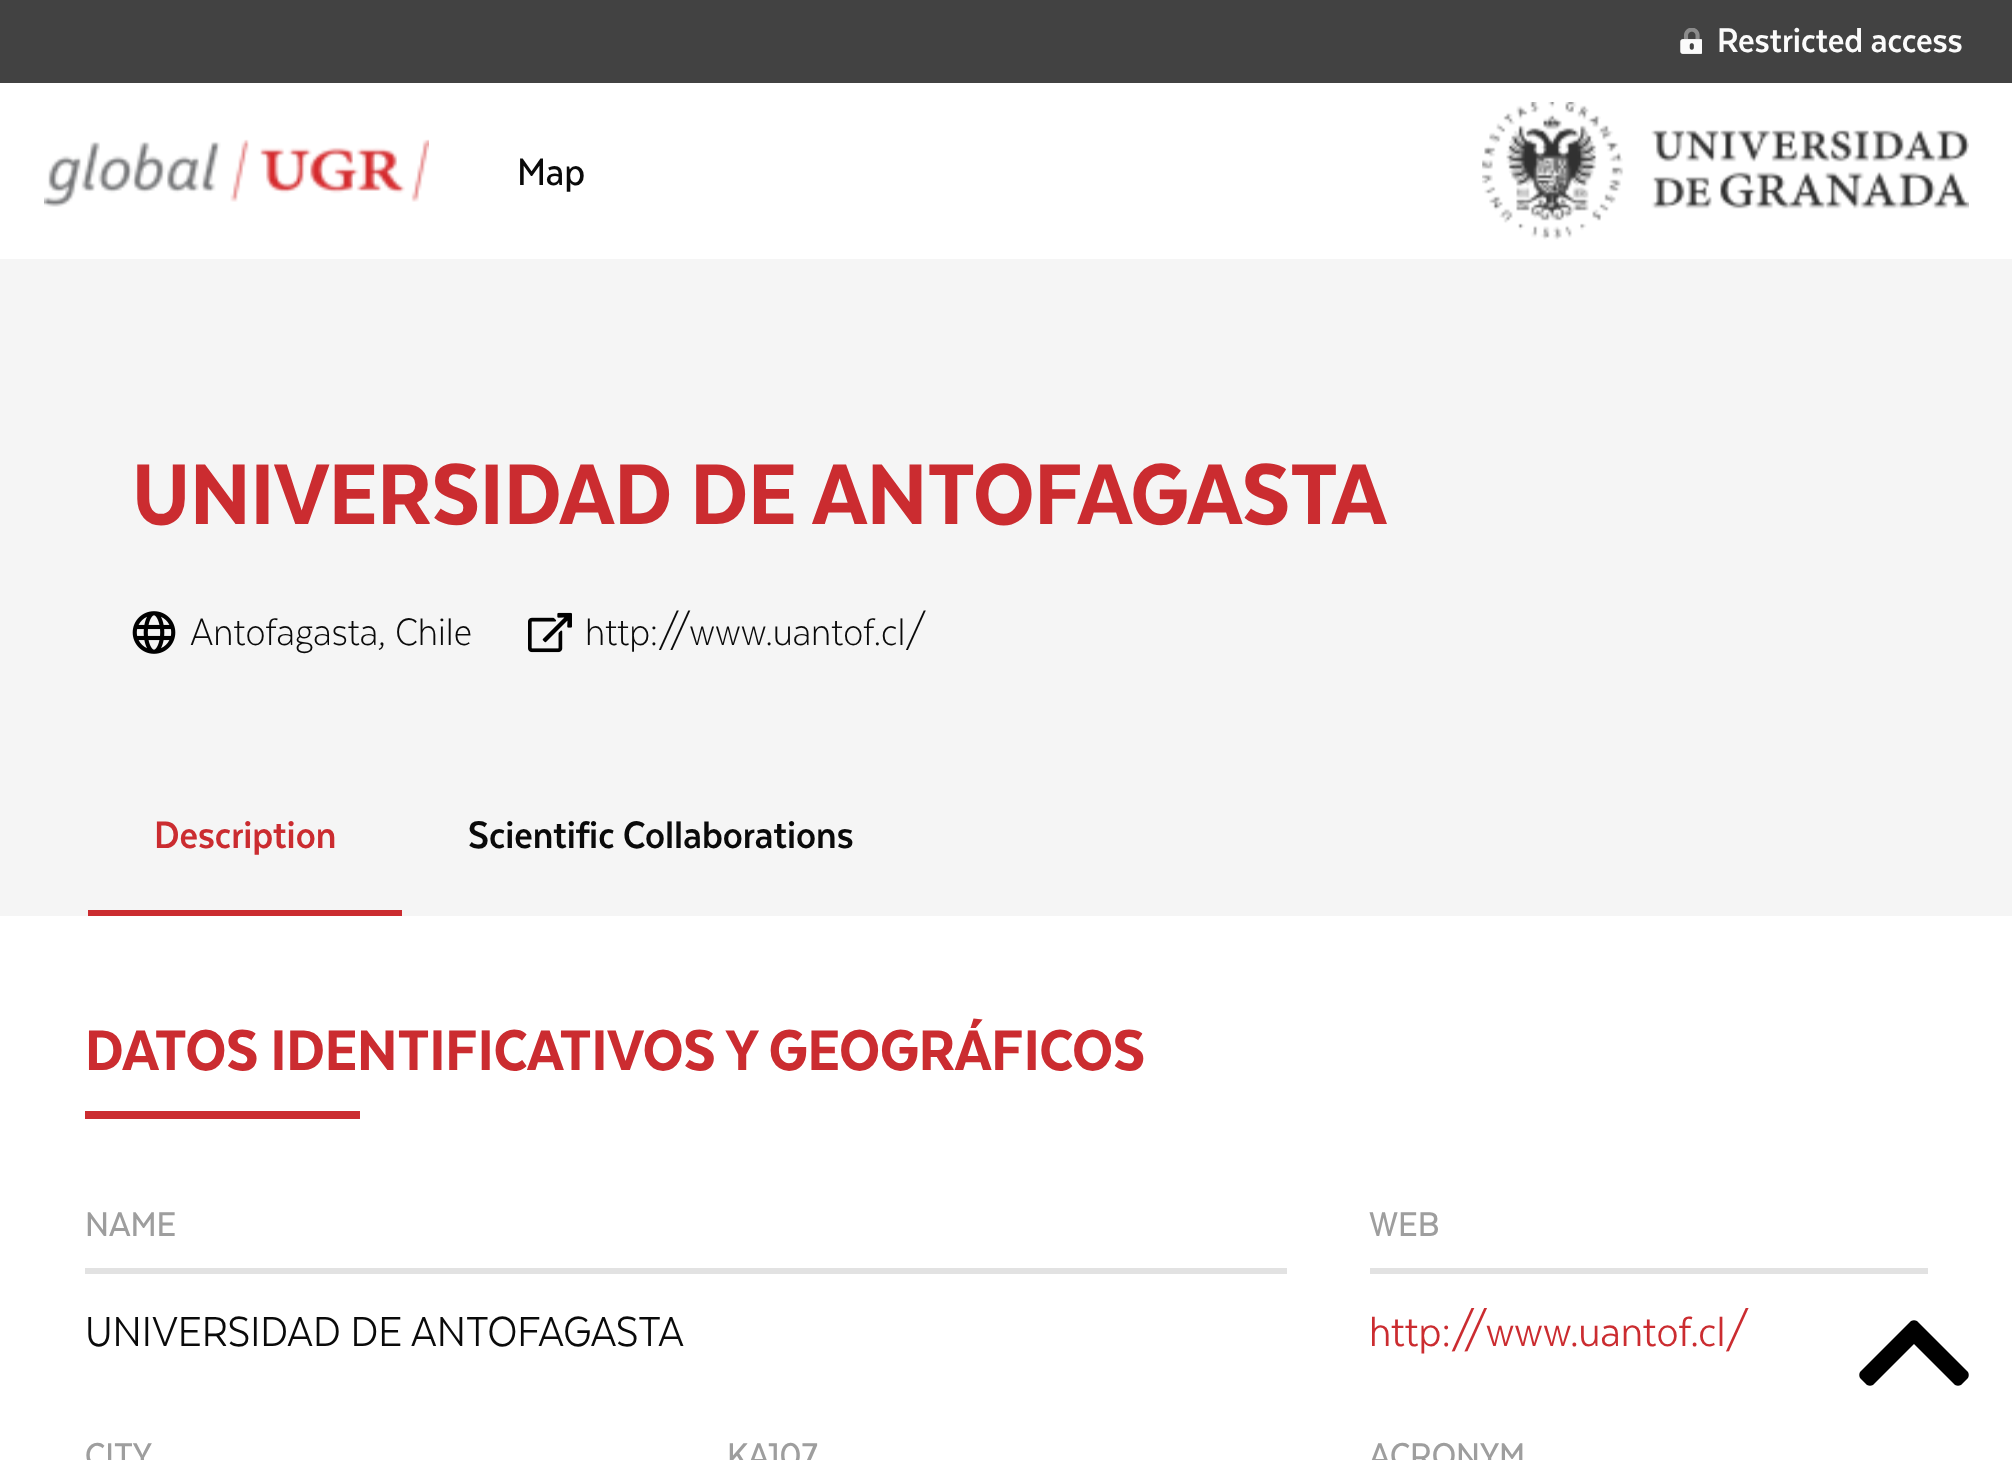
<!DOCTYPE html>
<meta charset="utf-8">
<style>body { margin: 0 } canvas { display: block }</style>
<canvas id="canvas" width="2012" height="1460"></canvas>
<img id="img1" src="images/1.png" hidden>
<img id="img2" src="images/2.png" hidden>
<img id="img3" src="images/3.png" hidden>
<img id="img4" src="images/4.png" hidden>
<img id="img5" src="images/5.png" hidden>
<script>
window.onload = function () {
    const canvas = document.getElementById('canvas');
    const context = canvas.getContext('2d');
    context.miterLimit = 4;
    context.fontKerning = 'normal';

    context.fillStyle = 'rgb(255, 255, 255)';
    context.fillRect(0, 0, 2012, 1460);
    context.fillStyle = 'rgb(66, 66, 66)';
    context.fillRect(0, 0, 2012, 83);
    context.drawImage(document.getElementById('img1'), 1680, 28, 22, 26);
    context.drawImage(document.getElementById('img2'), 44, 139, 385, 68);
    context.drawImage(document.getElementById('img3'), 1482, 102, 487, 138);
    context.fillStyle = 'rgb(245, 245, 245)';
    context.fillRect(0, 259, 2012, 657);
    context.drawImage(document.getElementById('img4'), 132, 611, 44, 43);
    context.drawImage(document.getElementById('img5'), 528, 612, 44, 41);
    context.fillStyle = 'rgb(203, 44, 48)';
    context.fillRect(88, 910, 314, 6);
    context.fillRect(85, 1111, 275, 8);
    context.fillStyle = 'rgb(226, 226, 226)';
    context.fillRect(85, 1268, 1202, 6);
    context.fillRect(1370, 1268, 558, 6);
    context.fillStyle = 'rgb(0, 0, 0)';
    context.beginPath();
    context.moveTo(1917, 1321);
    context.lineTo(1968, 1372);
    context.bezierCurveTo(1969, 1374, 1969, 1376, 1968, 1378);
    context.lineTo(1961, 1385);
    context.bezierCurveTo(1959, 1386, 1957, 1386, 1955, 1385);
    context.lineTo(1914, 1344);
    context.lineTo(1873, 1385);
    context.bezierCurveTo(1871, 1386, 1869, 1386, 1867, 1385);
    context.lineTo(1860, 1378);
    context.bezierCurveTo(1859, 1376, 1859, 1374, 1860, 1372);
    context.lineTo(1911, 1321);
    context.bezierCurveTo(1913, 1320, 1915, 1320, 1917, 1321);
    context.closePath();
    context.fill();
    context.font = 'bold 39.5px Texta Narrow';
    context.fillStyle = 'rgb(251, 251, 251)';
    context.fillText('Restricted access', 1717, 52);
    context.font = '500 44px Texta Narrow';
    context.fillStyle = 'rgb(10, 10, 10)';
    context.fillText('Map', 517, 185);
    context.font = '900 99px Texta Narrow';
    context.fillStyle = 'rgb(203, 44, 48)';
    context.fillText('UNIVERSIDAD DE ANTOFAGASTA', 132, 524);
    context.font = '300 44px Texta Narrow';
    context.fillStyle = 'rgb(10, 10, 10)';
    context.fillText('Antofagasta, Chile', 190, 645);
    context.fillText('http://www.uantof.cl/', 585, 645);
    context.font = 'bold 44px Texta Narrow';
    context.fillStyle = 'rgb(203, 44, 48)';
    context.fillText('Description', 154, 848);
    context.fillStyle = 'rgb(10, 10, 10)';
    context.fillText('Scientific Collaborations', 468, 848);
    context.font = '900 66px Texta Narrow';
    context.fillStyle = 'rgb(203, 44, 48)';
    context.fillText('DATOS IDENTIFICATIVOS Y GEOGRÁFICOS', 85, 1070);
    context.font = '500 39.5px Texta Narrow';
    context.fillStyle = 'rgb(158, 158, 158)';
    context.fillText('NAME', 85, 1236);
    context.font = '48.4px Texta Narrow';
    context.fillStyle = 'rgb(10, 10, 10)';
    context.fillText('UNIVERSIDAD DE ANTOFAGASTA', 85, 1346);
    context.font = '500 39.5px Texta Narrow';
    context.fillStyle = 'rgb(158, 158, 158)';
    context.fillText('WEB', 1369, 1236);
    context.font = '48.4px Texta Narrow';
    context.fillStyle = 'rgb(203, 44, 48)';
    context.fillText('http://www.uantof.cl/', 1369, 1346);
    context.font = '500 39.5px Texta Narrow';
    context.fillStyle = 'rgb(158, 158, 158)';
    context.fillText('CITY', 85, 1467);
    context.fillText('KA107', 727, 1467);
    context.fillText('ACRONYM', 1369, 1467);
};
</script>
